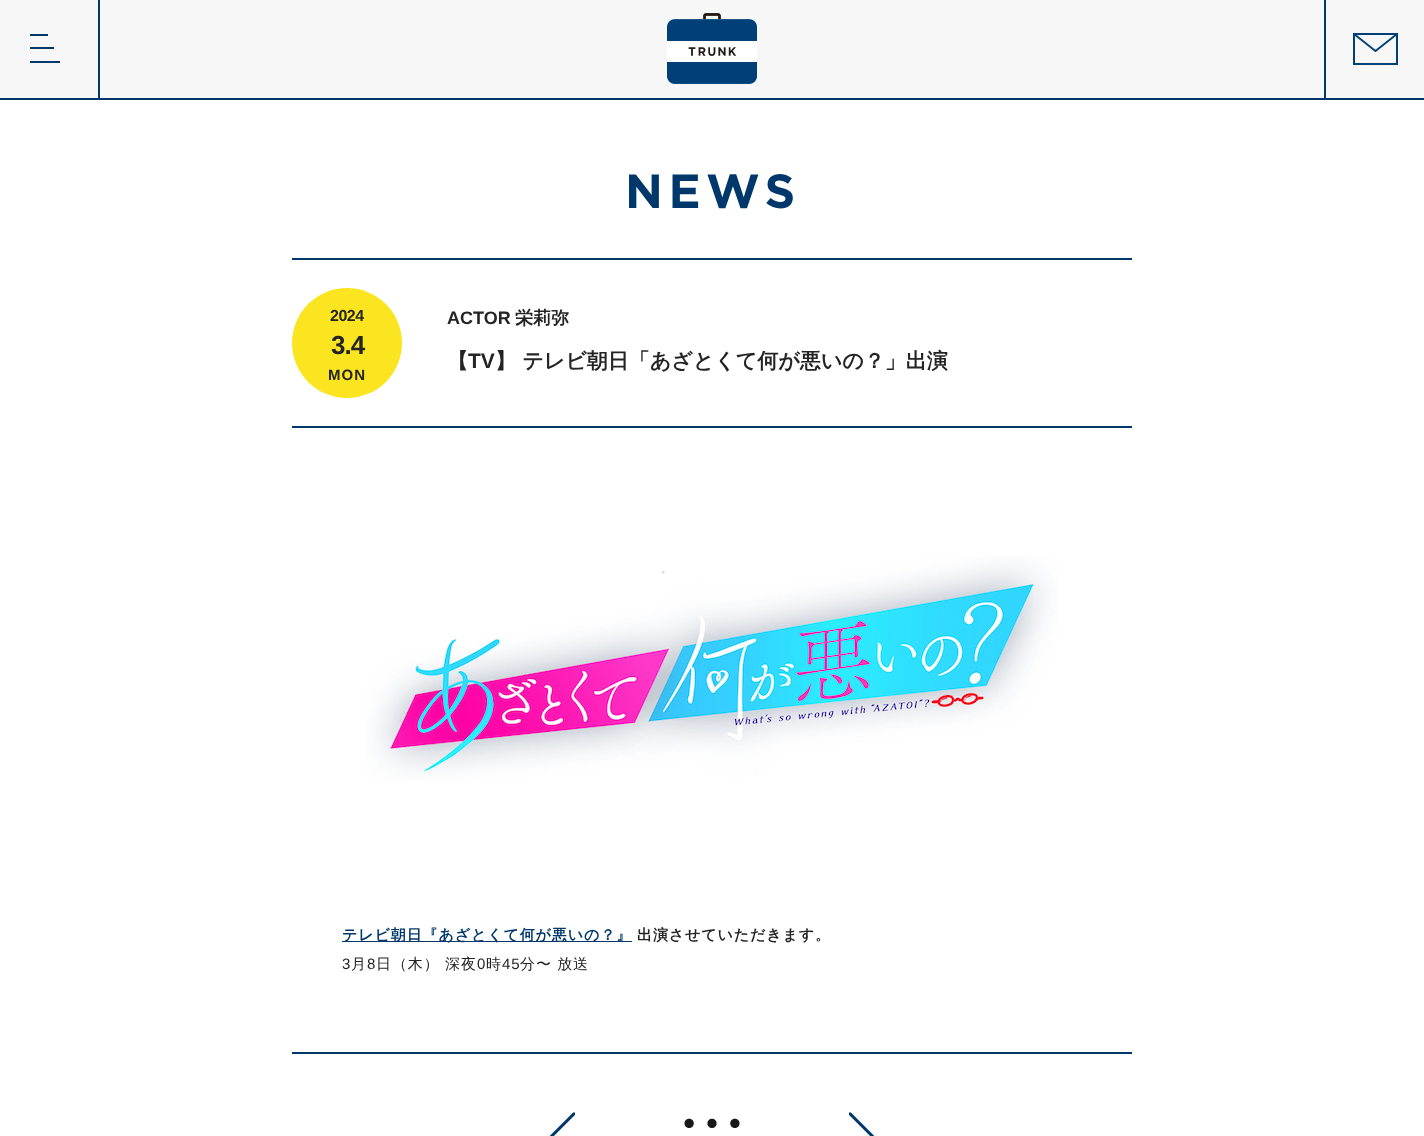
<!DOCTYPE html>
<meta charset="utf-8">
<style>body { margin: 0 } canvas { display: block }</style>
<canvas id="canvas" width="1424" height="1136"></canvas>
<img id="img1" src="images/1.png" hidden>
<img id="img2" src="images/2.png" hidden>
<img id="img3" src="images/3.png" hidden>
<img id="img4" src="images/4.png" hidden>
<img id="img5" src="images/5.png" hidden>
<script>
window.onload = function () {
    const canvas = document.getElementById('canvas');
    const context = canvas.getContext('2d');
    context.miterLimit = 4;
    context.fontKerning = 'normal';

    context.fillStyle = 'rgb(255, 255, 255)';
    context.fillRect(0, 0, 1424, 1136);
    context.fillStyle = 'rgb(247, 247, 247)';
    context.fillRect(0, 0, 1424, 98);
    context.fillStyle = 'rgb(0, 56, 107)';
    context.fillRect(0, 98, 1424, 2);
    context.fillRect(98, 0, 2, 98);
    context.drawImage(document.getElementById('img1'), 667, 13, 90, 71);
    context.fillRect(1324, 0, 2, 98);
    context.strokeStyle = 'rgb(1, 64, 118)';
    context.lineWidth = 2;
    context.strokeRect(1354, 34, 43, 30);
    context.beginPath();
    context.moveTo(1354, 34);
    context.lineTo(1375.5, 51);
    context.lineTo(1397, 34);
    context.lineWidth = 1.9;
    context.lineCap = 'round';
    context.lineJoin = 'round';
    context.stroke();
    context.fillRect(30, 34, 18, 2);
    context.fillRect(30, 47, 24, 2);
    context.fillRect(30, 61, 30, 2);
    context.fillRect(292, 258, 840, 2);
    context.fillRect(292, 426, 840, 2);
    context.fillStyle = 'rgb(251, 229, 33)';
    context.beginPath();
    context.arc(347, 343, 55, 0, 2 * Math.PI);
    context.fill();
    context.fillStyle = 'rgb(0, 56, 107)';
    context.fillRect(292, 1052, 840, 2);
    context.drawImage(document.getElementById('img2'), 366, 556, 692, 225);
    context.fillRect(342, 941, 290, 1);
    context.drawImage(document.getElementById('img3'), 549, 1112, 26, 24);
    context.drawImage(document.getElementById('img4'), 684, 1118, 56, 10);
    context.drawImage(document.getElementById('img5'), 849, 1112, 26, 24);
    context.letterSpacing = '5.5px';
    context.font = 'bold 48px Gotham';
    context.fillText('NEWS', 625, 208);
    context.letterSpacing = '-0.5px';
    context.font = 'bold 16px Liberation Sans';
    context.fillStyle = 'rgb(36, 36, 36)';
    context.fillText('2024', 330, 321);
    context.letterSpacing = '-1px';
    context.font = 'bold 26px Liberation Sans';
    context.fillText('3.4', 331, 354);
    context.letterSpacing = '1px';
    context.font = 'bold 15px Liberation Sans';
    context.fillText('MON', 328, 380);
    context.letterSpacing = '0px';
    context.font = 'bold 18px Liberation Sans';
    context.fillText('ACTOR', 447, 324);
    context.font = 'bold 18px WenQuanYi Zen Hei';
    context.fillText('栄莉弥', 515, 324);
    context.font = 'bold 21px WenQuanYi Zen Hei';
    context.fillText('【', 447, 368);
    context.font = 'bold 21px Liberation Sans';
    context.fillText('TV', 468, 368);
    context.font = 'bold 21px WenQuanYi Zen Hei';
    context.fillText('】 テレビ朝日「あざとくて何が悪いの？」出演', 495, 368);
    context.letterSpacing = '0.9px';
    context.font = 'bold 15px WenQuanYi Zen Hei';
    context.fillStyle = 'rgb(0, 56, 107)';
    context.fillText('テレビ朝日『あざとくて何が悪いの？』', 342, 940);
    context.fillStyle = 'rgb(36, 36, 36)';
    context.fillText('出演させていただきます。', 637, 940);
    context.font = '15px Liberation Sans';
    context.fillText('3', 342, 969);
    context.font = '500 15px WenQuanYi Zen Hei';
    context.fillText('月', 351, 969);
    context.font = '15px Liberation Sans';
    context.fillText('8', 367, 969);
    context.font = '500 15px WenQuanYi Zen Hei';
    context.fillText('日（木） 深夜', 376, 969);
    context.font = '15px Liberation Sans';
    context.fillText('0', 477, 969);
    context.font = '500 15px WenQuanYi Zen Hei';
    context.fillText('時', 486, 969);
    context.font = '15px Liberation Sans';
    context.fillText('45', 502, 969);
    context.font = '500 15px WenQuanYi Zen Hei';
    context.fillText('分〜 放送', 520, 969);
};
</script>
